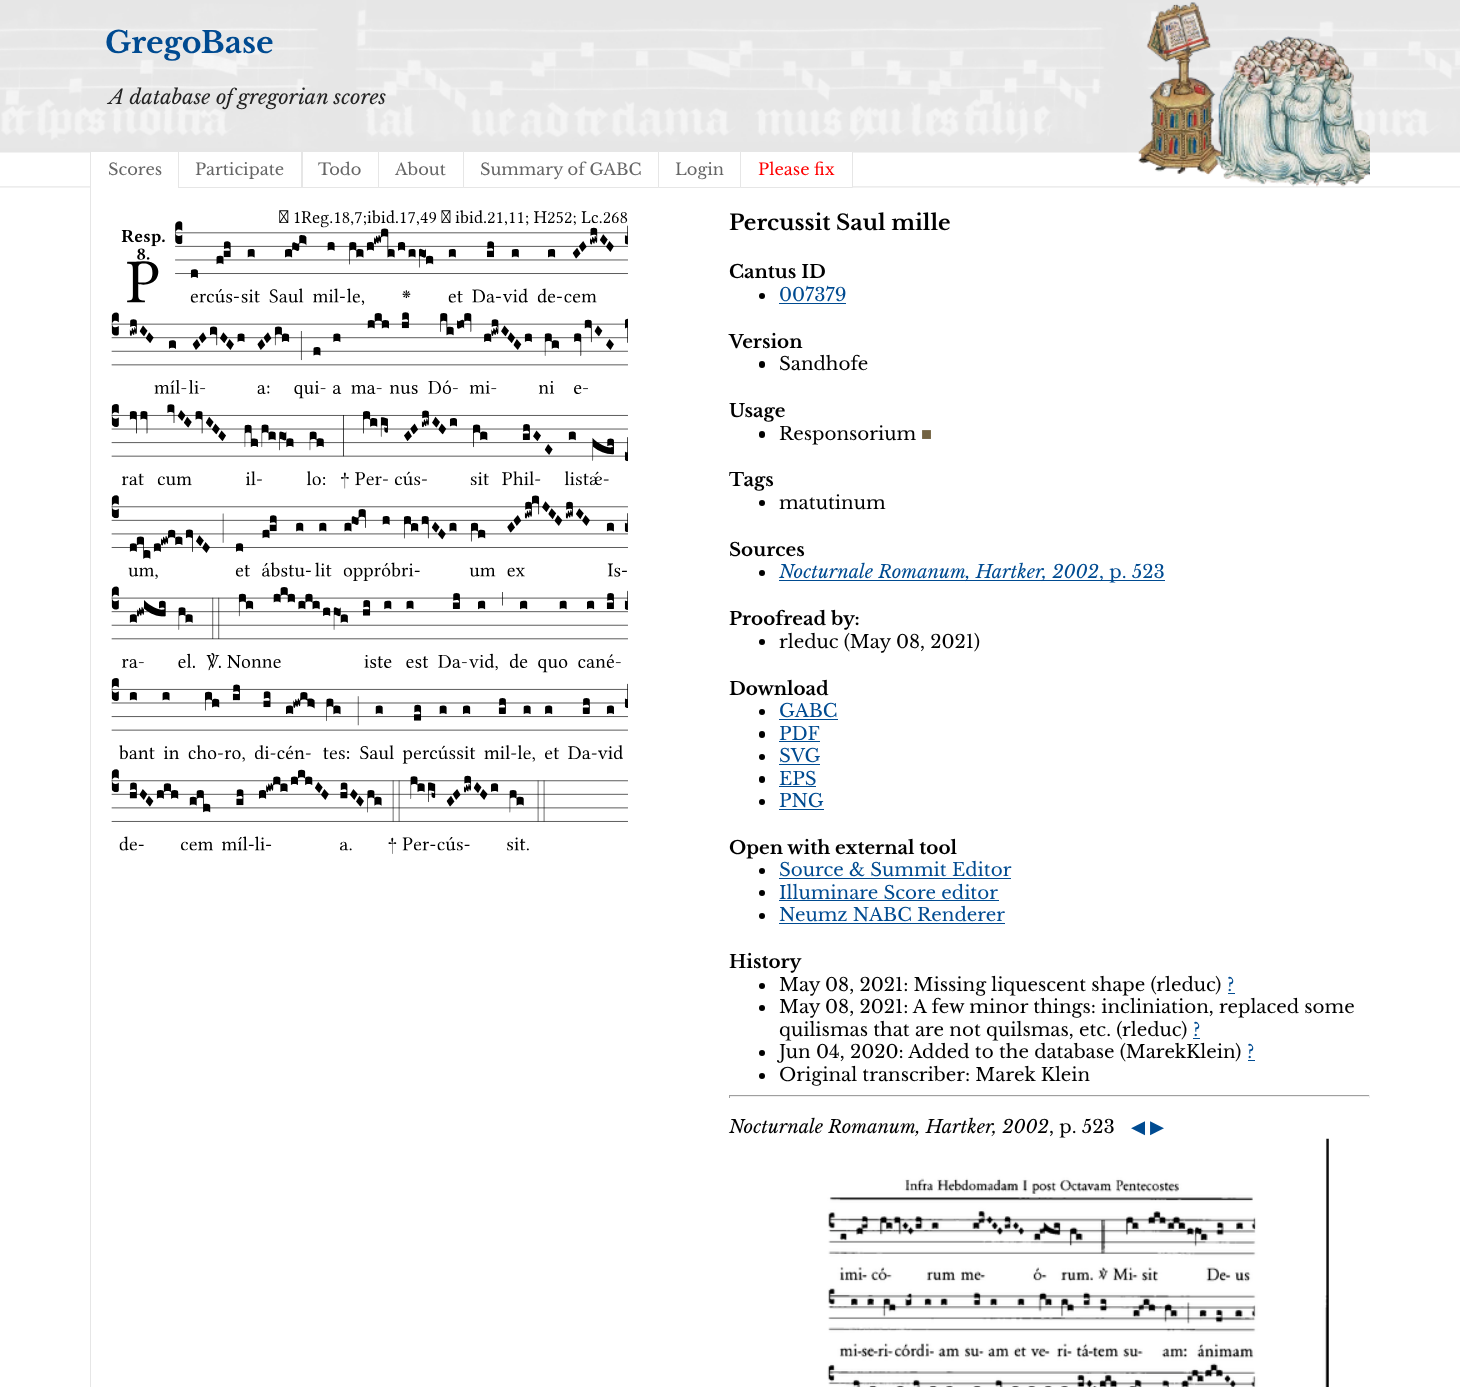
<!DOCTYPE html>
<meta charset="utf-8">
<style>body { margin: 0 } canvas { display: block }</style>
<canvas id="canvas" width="1460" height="1387"></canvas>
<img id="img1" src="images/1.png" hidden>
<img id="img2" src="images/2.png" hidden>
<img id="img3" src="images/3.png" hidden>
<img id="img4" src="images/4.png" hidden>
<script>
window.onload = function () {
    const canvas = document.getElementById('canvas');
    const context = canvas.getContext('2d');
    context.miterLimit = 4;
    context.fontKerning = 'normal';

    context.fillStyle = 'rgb(255, 255, 255)';
    context.fillRect(0, 0, 1460, 1387);
    context.drawImage(document.getElementById('img1'), 0, 0, 1460, 188);
    context.fillRect(91, 152, 87, 36);
    context.fillRect(90, 186, 89, 1);
    context.fillStyle = 'rgb(230, 230, 230)';
    context.fillRect(90, 151, 1, 37);
    context.fillStyle = 'rgb(255, 255, 255)';
    context.fillRect(179, 152, 122, 35);
    context.strokeStyle = 'rgb(230, 230, 230)';
    context.strokeRect(178.5, 151.5, 124, 36);
    context.fillRect(303, 152, 75, 35);
    context.strokeRect(301.5, 151.5, 77, 36);
    context.beginPath();
    context.rect(378.5, 151.5, 85, 36);
    context.fill();
    context.stroke();
    context.beginPath();
    context.rect(463.5, 151.5, 195, 36);
    context.fill();
    context.stroke();
    context.beginPath();
    context.rect(658.5, 151.5, 82, 36);
    context.fill();
    context.stroke();
    context.beginPath();
    context.rect(740.5, 151.5, 112, 36);
    context.fill();
    context.stroke();
    context.drawImage(document.getElementById('img2'), 1138, 2, 232, 185);
    context.fillStyle = 'rgb(230, 230, 230)';
    context.fillRect(90, 188, 1, 1199);
    context.drawImage(document.getElementById('img3'), 111, 210, 517, 644);
    context.fillStyle = 'rgb(0, 0, 0)';
    context.beginPath();
    context.arc(762, 296, 3, 0, 2 * Math.PI);
    context.fill();
    context.fillStyle = 'rgb(0, 75, 145)';
    context.fillRect(779, 303, 67, 1);
    context.fillStyle = 'rgb(0, 0, 0)';
    context.beginPath();
    context.roundRect(759, 361, 6, 7, 3);
    context.fill();
    context.beginPath();
    context.roundRect(759, 431, 6, 7, 3);
    context.fill();
    context.beginPath();
    context.arc(762, 503, 3, 0, 2 * Math.PI);
    context.fill();
    context.beginPath();
    context.arc(762, 573, 3, 0, 2 * Math.PI);
    context.fill();
    context.fillStyle = 'rgb(0, 75, 145)';
    context.fillRect(779, 580, 386, 1);
    context.fillStyle = 'rgb(0, 0, 0)';
    context.beginPath();
    context.arc(762, 642, 3, 0, 2 * Math.PI);
    context.fill();
    context.beginPath();
    context.arc(762, 712, 3, 0, 2 * Math.PI);
    context.fill();
    context.fillStyle = 'rgb(0, 75, 145)';
    context.fillRect(779, 719, 59, 1);
    context.fillStyle = 'rgb(0, 0, 0)';
    context.beginPath();
    context.roundRect(759, 731, 6, 7, 3);
    context.fill();
    context.fillStyle = 'rgb(0, 75, 145)';
    context.fillRect(779, 741, 41, 1);
    context.fillStyle = 'rgb(0, 0, 0)';
    context.beginPath();
    context.arc(762, 757, 3, 0, 2 * Math.PI);
    context.fill();
    context.fillStyle = 'rgb(0, 75, 145)';
    context.fillRect(779, 764, 41, 1);
    context.fillStyle = 'rgb(0, 0, 0)';
    context.beginPath();
    context.roundRect(759, 776, 6, 7, 3);
    context.fill();
    context.fillStyle = 'rgb(0, 75, 145)';
    context.fillRect(779, 786, 37, 1);
    context.fillStyle = 'rgb(0, 0, 0)';
    context.beginPath();
    context.arc(762, 802, 3, 0, 2 * Math.PI);
    context.fill();
    context.fillStyle = 'rgb(0, 75, 145)';
    context.fillRect(779, 809, 45, 1);
    context.fillStyle = 'rgb(0, 0, 0)';
    context.beginPath();
    context.arc(762, 871, 3, 0, 2 * Math.PI);
    context.fill();
    context.fillStyle = 'rgb(0, 75, 145)';
    context.fillRect(779, 878, 232, 1);
    context.fillStyle = 'rgb(0, 0, 0)';
    context.beginPath();
    context.arc(762, 893, 3, 0, 2 * Math.PI);
    context.fill();
    context.fillStyle = 'rgb(0, 75, 145)';
    context.fillRect(779, 900, 220, 1);
    context.fillStyle = 'rgb(0, 0, 0)';
    context.beginPath();
    context.arc(762, 916, 3, 0, 2 * Math.PI);
    context.fill();
    context.fillStyle = 'rgb(0, 75, 145)';
    context.fillRect(779, 923, 226, 1);
    context.fillStyle = 'rgb(0, 0, 0)';
    context.beginPath();
    context.arc(762, 986, 3, 0, 2 * Math.PI);
    context.fill();
    context.fillStyle = 'rgb(0, 75, 145)';
    context.fillRect(1228, 993, 7, 1);
    context.fillStyle = 'rgb(0, 0, 0)';
    context.beginPath();
    context.arc(762, 1008, 3, 0, 2 * Math.PI);
    context.fill();
    context.fillStyle = 'rgb(0, 75, 145)';
    context.fillRect(1193, 1038, 7, 1);
    context.fillStyle = 'rgb(0, 0, 0)';
    context.beginPath();
    context.arc(762, 1053, 3, 0, 2 * Math.PI);
    context.fill();
    context.fillStyle = 'rgb(0, 75, 145)';
    context.fillRect(1248, 1060, 7, 1);
    context.fillStyle = 'rgb(0, 0, 0)';
    context.beginPath();
    context.arc(762, 1076, 3, 0, 2 * Math.PI);
    context.fill();
    context.fillStyle = 'rgb(159, 159, 159)';
    context.fillRect(729, 1095, 641, 1);
    context.fillStyle = 'rgb(238, 238, 238)';
    context.fillRect(1369, 1095, 1, 3);
    context.fillRect(729, 1096, 641, 1);
    context.fillStyle = 'rgb(159, 159, 159)';
    context.fillRect(729, 1095, 1, 3);
    context.drawImage(document.getElementById('img4'), 827, 1138, 502, 249);
    context.font = 'bold 30px Libre Baskerville';
    context.fillStyle = 'rgb(0, 75, 145)';
    context.fillText('GregoBase', 105, 53);
    context.font = 'italic 20px Libre Baskerville';
    context.fillStyle = 'rgb(34, 34, 34)';
    context.fillText('A database of gregorian scores', 109, 104);
    context.font = '16.25px Libre Baskerville';
    context.fillStyle = 'rgb(102, 102, 102)';
    context.fillText('Scores', 108, 175);
    context.fillText('Participate', 195, 175);
    context.fillText('Todo', 318, 175);
    context.fillText('About', 395, 175);
    context.fillText('Summary of GABC', 480, 175);
    context.fillText('Login', 675, 175);
    context.fillStyle = 'rgb(255, 0, 0)';
    context.fillText('Please fix', 758, 175);
    context.font = 'bold 21.5px Libre Baskerville';
    context.fillStyle = 'rgb(0, 0, 0)';
    context.fillText('Percussit Saul mille', 729, 230);
    context.font = 'bold 18.3px Libre Baskerville';
    context.fillText('Cantus ID', 729, 278);
    context.font = '18.3px Libre Baskerville';
    context.fillStyle = 'rgb(0, 75, 145)';
    context.fillText('007379', 779, 301);
    context.font = 'bold 18.3px Libre Baskerville';
    context.fillStyle = 'rgb(0, 0, 0)';
    context.fillText('Version', 729, 348);
    context.font = '18.3px Libre Baskerville';
    context.fillText('Sandhofe', 779, 370);
    context.font = 'bold 18.3px Libre Baskerville';
    context.fillText('Usage', 729, 417);
    context.font = '18.3px Libre Baskerville';
    context.fillText('Responsorium', 779, 440);
    context.font = '18.3px Liberation Serif';
    context.fillStyle = 'rgb(115, 99, 66)';
    context.fillText('■', 921, 440);
    context.font = 'bold 18.3px Libre Baskerville';
    context.fillStyle = 'rgb(0, 0, 0)';
    context.fillText('Tags', 729, 486);
    context.font = '18.3px Libre Baskerville';
    context.fillText('matutinum', 779, 509);
    context.font = 'bold 18.3px Libre Baskerville';
    context.fillText('Sources', 729, 556);
    context.font = 'italic 18.3px Libre Baskerville';
    context.fillStyle = 'rgb(0, 75, 145)';
    context.fillText('Nocturnale Romanum, Hartker, 2002', 779, 578);
    context.font = '18.3px Libre Baskerville';
    context.fillText(', p. 523', 1099, 578);
    context.font = 'bold 18.3px Libre Baskerville';
    context.fillStyle = 'rgb(0, 0, 0)';
    context.fillText('Proofread by:', 729, 625);
    context.font = '18.3px Libre Baskerville';
    context.fillText('rleduc (May 08, 2021)', 779, 648);
    context.font = 'bold 18.3px Libre Baskerville';
    context.fillText('Download', 729, 695);
    context.font = '18.3px Libre Baskerville';
    context.fillStyle = 'rgb(0, 75, 145)';
    context.fillText('GABC', 779, 717);
    context.fillText('PDF', 779, 740);
    context.fillText('SVG', 779, 762);
    context.fillText('EPS', 779, 785);
    context.fillText('PNG', 779, 807);
    context.font = 'bold 18.3px Libre Baskerville';
    context.fillStyle = 'rgb(0, 0, 0)';
    context.fillText('Open with external tool', 729, 854);
    context.font = '18.3px Libre Baskerville';
    context.fillStyle = 'rgb(0, 75, 145)';
    context.fillText('Source & Summit Editor', 779, 876);
    context.fillText('Illuminare Score editor', 779, 899);
    context.fillText('Neumz NABC Renderer', 779, 921);
    context.font = 'bold 18.3px Libre Baskerville';
    context.fillStyle = 'rgb(0, 0, 0)';
    context.fillText('History', 729, 968);
    context.font = '18.3px Libre Baskerville';
    context.fillText('May 08, 2021: Missing liquescent shape (rleduc)', 779, 991);
    context.fillStyle = 'rgb(0, 75, 145)';
    context.fillText('?', 1227, 991);
    context.fillStyle = 'rgb(0, 0, 0)';
    context.fillText('May 08, 2021: A few minor things: incliniation, replaced some', 779, 1013);
    context.fillText('quilismas that are not quilsmas, etc. (rleduc)', 779, 1036);
    context.fillStyle = 'rgb(0, 75, 145)';
    context.fillText('?', 1193, 1036);
    context.fillStyle = 'rgb(0, 0, 0)';
    context.fillText('Jun 04, 2020: Added to the database (MarekKlein)', 779, 1058);
    context.fillStyle = 'rgb(0, 75, 145)';
    context.fillText('?', 1247, 1058);
    context.fillStyle = 'rgb(0, 0, 0)';
    context.fillText('Original transcriber: Marek Klein', 779, 1081);
    context.font = 'italic 18.3px Libre Baskerville';
    context.fillText('Nocturnale Romanum, Hartker, 2002', 729, 1133);
    context.font = '18.3px Libre Baskerville';
    context.fillText(', p. 523', 1049, 1133);
    context.font = '18.3px DejaVu Sans';
    context.fillStyle = 'rgb(0, 75, 145)';
    context.fillText('◀', 1131, 1133);
    context.fillText('▶', 1150, 1133);
};
</script>
